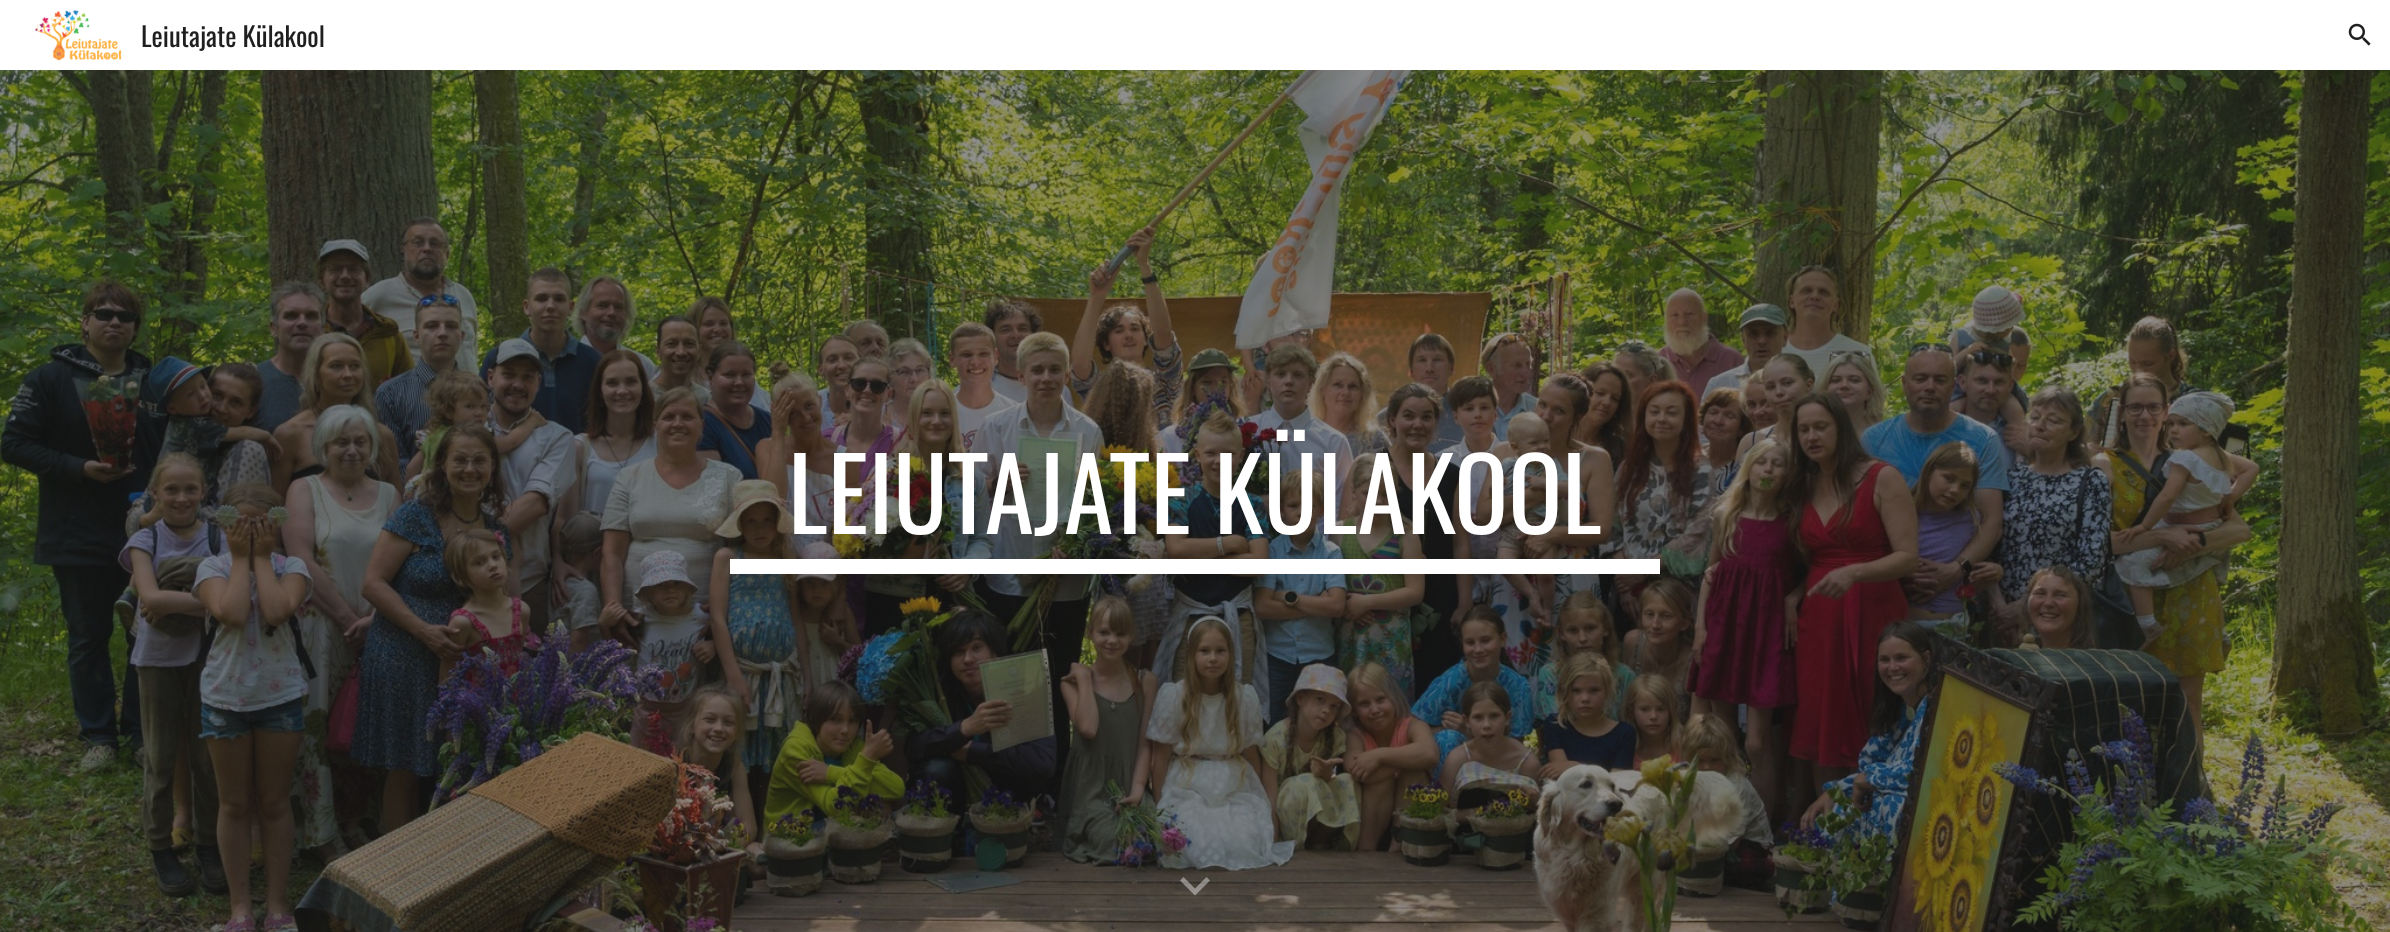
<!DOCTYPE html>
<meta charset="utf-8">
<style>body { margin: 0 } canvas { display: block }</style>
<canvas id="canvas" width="2390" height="932"></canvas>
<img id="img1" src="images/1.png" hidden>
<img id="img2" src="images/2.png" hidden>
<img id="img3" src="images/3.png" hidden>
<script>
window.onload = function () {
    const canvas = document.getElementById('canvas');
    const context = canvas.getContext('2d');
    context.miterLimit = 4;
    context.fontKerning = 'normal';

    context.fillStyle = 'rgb(255, 255, 255)';
    context.fillRect(0, 0, 2390, 932);
    context.drawImage(document.getElementById('img1'), 34, 10, 88, 51);
    context.drawImage(document.getElementById('img2'), 2348, 23, 23, 23);
    context.drawImage(document.getElementById('img3'), 0, 70, 2390, 862);
    context.fillRect(730, 559, 930, 15);
    context.fillStyle = 'rgba(255, 255, 255, 0.4)';
    context.beginPath();
    context.moveTo(1183.5, 877);
    context.lineTo(1195, 888.5);
    context.lineTo(1206.5, 877);
    context.lineTo(1210, 880.5);
    context.lineTo(1195, 895.5);
    context.lineTo(1180, 880.5);
    context.closePath();
    context.fill();
    context.font = '26.75px Oswald';
    context.fillStyle = 'rgb(31, 31, 31)';
    context.fillText('Leiutajate Külakool', 141, 47);
    context.font = '100px Oswald';
    context.fillStyle = 'rgb(255, 255, 255)';
    context.fillText('LEIUTAJATE KÜLAKOOL', 788, 534);
};
</script>
